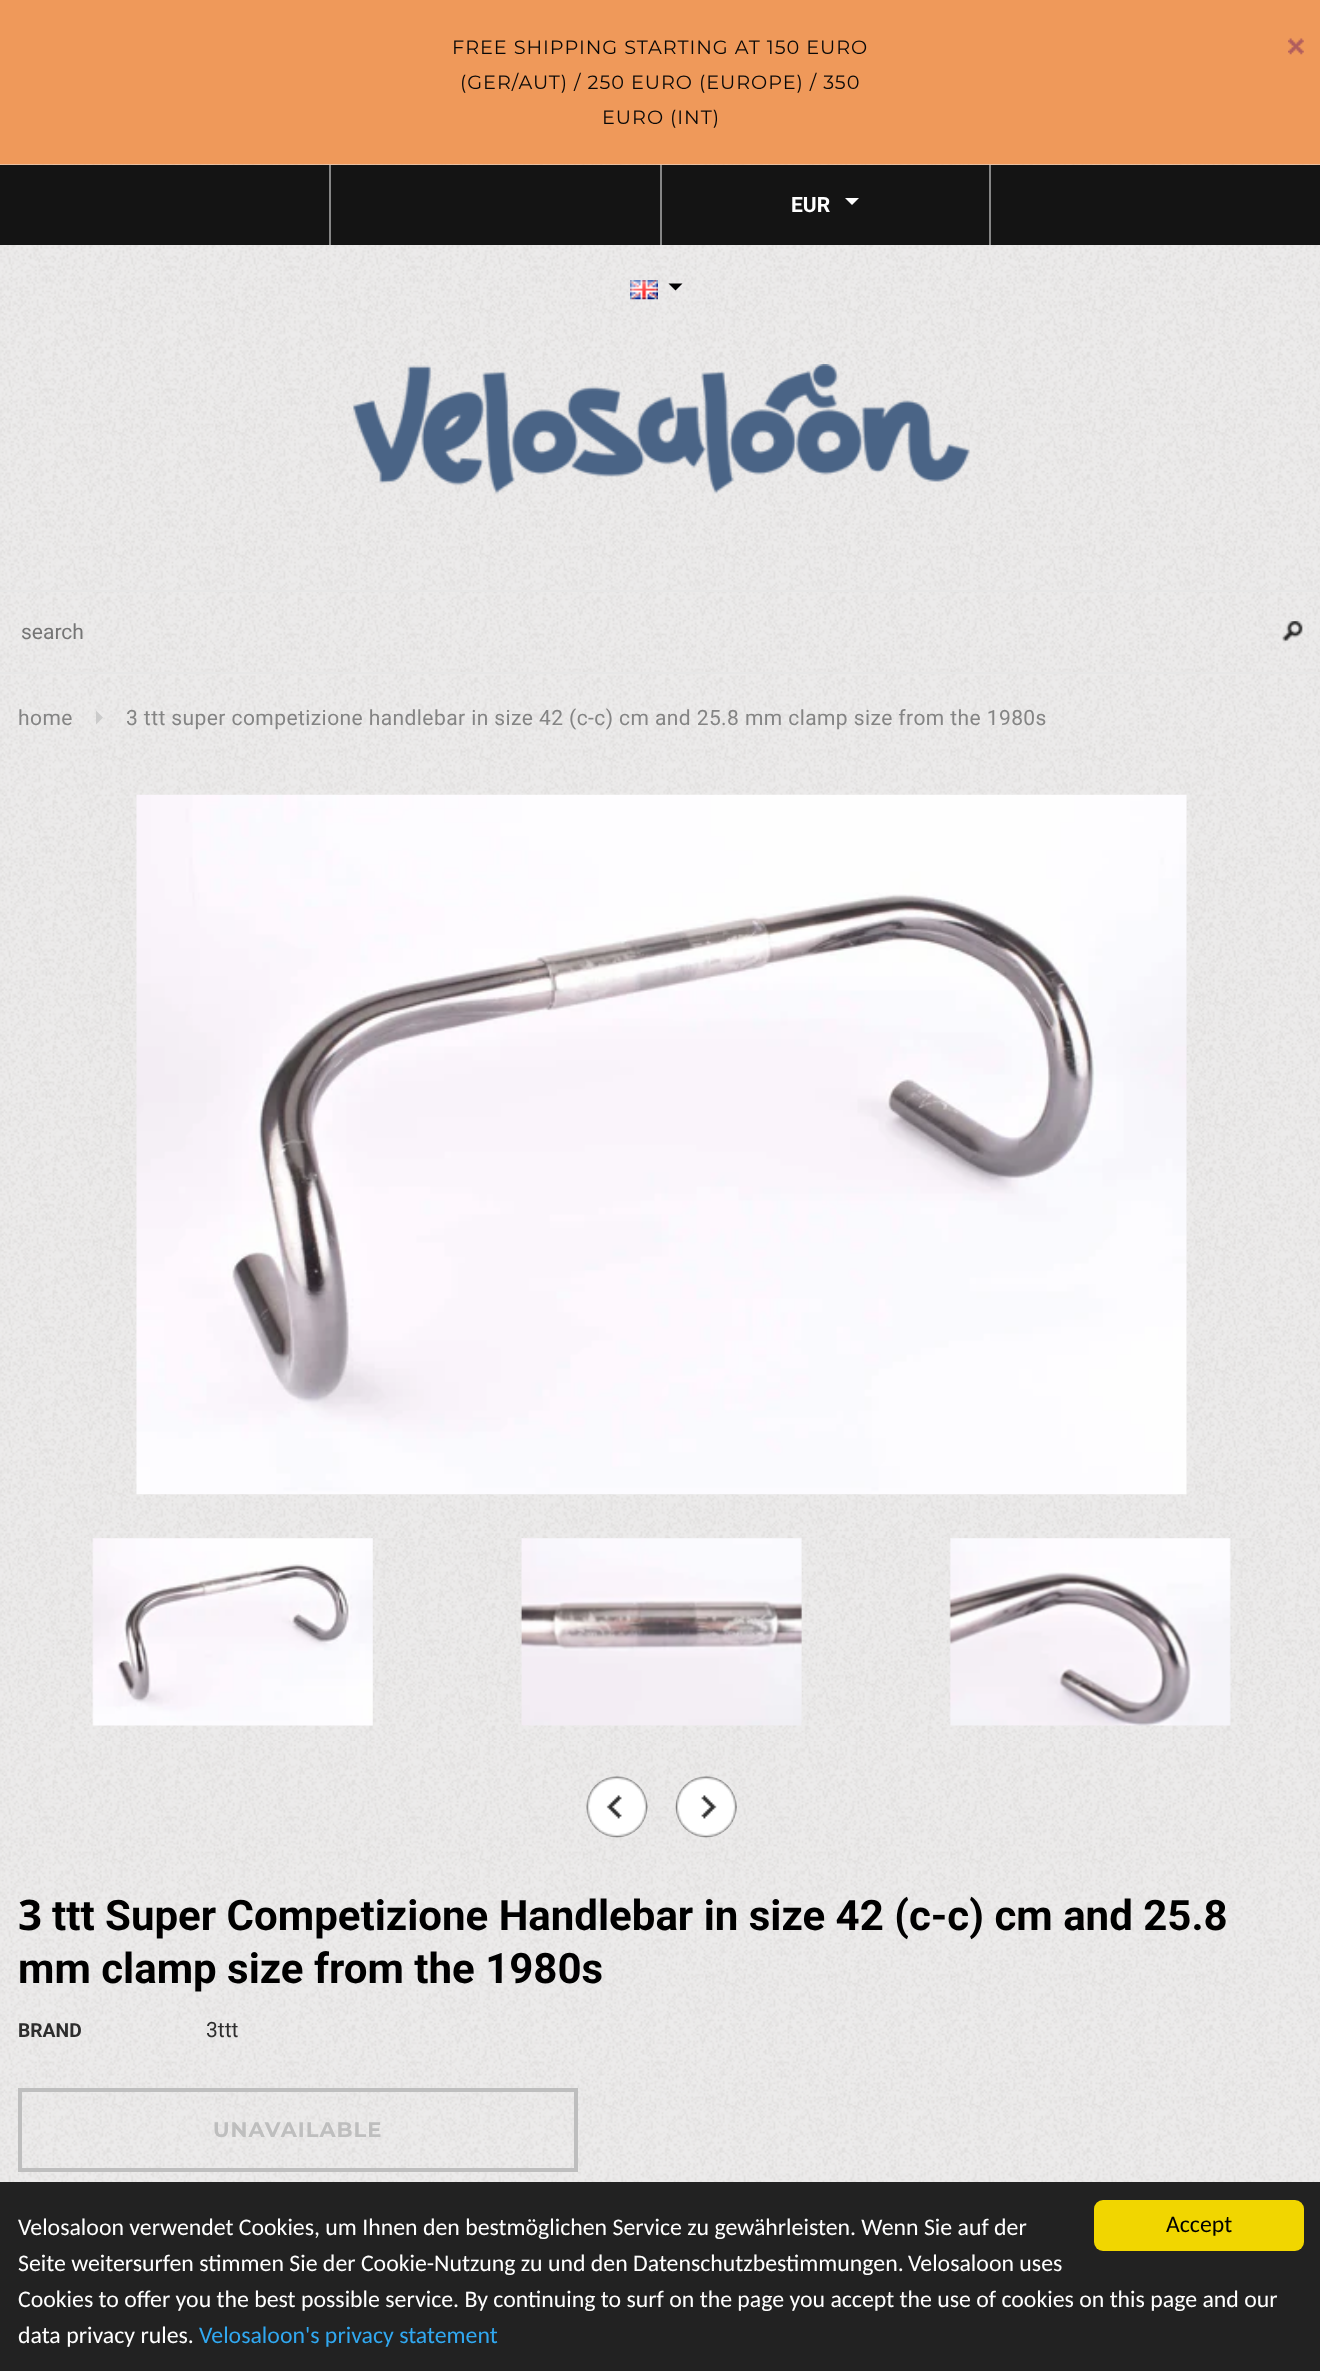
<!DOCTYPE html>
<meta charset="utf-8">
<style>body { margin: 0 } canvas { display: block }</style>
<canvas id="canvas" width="1320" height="2371"></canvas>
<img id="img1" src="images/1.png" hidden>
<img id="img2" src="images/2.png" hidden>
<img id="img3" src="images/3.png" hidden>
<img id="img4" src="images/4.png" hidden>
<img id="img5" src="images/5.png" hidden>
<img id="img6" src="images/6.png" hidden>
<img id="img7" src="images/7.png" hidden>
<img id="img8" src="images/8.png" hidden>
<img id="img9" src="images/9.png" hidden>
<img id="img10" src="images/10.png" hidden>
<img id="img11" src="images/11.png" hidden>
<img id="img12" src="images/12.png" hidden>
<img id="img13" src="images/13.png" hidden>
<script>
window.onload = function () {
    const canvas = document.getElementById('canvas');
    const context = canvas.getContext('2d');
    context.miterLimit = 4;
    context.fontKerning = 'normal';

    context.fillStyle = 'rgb(255, 255, 255)';
    context.fillRect(0, 0, 1320, 2371);
    context.drawImage(document.getElementById('img1'), 0, 674, 1320, 1508);
    context.fillStyle = 'rgb(239, 153, 90)';
    context.fillRect(0, 0, 1320, 165);
    context.drawImage(document.getElementById('img2'), 1288, 38, 16, 17);
    context.drawImage(document.getElementById('img3'), 0, 164, 1320, 508);
    context.fillStyle = 'rgb(20, 20, 20)';
    context.fillRect(0, 165, 660, 80);
    context.fillStyle = 'rgb(134, 134, 134)';
    context.fillRect(329, 165, 2, 80);
    context.fillRect(660, 165, 2, 80);
    context.fillStyle = 'rgb(20, 20, 20)';
    context.fillRect(662, 165, 327, 80);
    context.fillStyle = 'rgb(134, 134, 134)';
    context.fillRect(989, 165, 2, 80);
    context.fillStyle = 'rgb(255, 255, 255)';
    context.beginPath();
    context.moveTo(845, 198);
    context.lineTo(859, 198);
    context.lineTo(852, 205);
    context.closePath();
    context.fill();
    context.drawImage(document.getElementById('img4'), 630, 280, 28, 20);
    context.fillStyle = 'rgb(0, 0, 0)';
    context.beginPath();
    context.moveTo(668.5, 283.5);
    context.lineTo(682.5, 283.5);
    context.lineTo(675.5, 290.5);
    context.closePath();
    context.fill();
    context.fillStyle = 'rgb(20, 20, 20)';
    context.fillRect(991, 165, 329, 80);
    context.drawImage(document.getElementById('img5'), 353, 364, 617, 130);
    context.fillStyle = 'rgb(231, 231, 231)';
    context.fillRect(0, 590, 1320, 2);
    context.fillRect(0, 672, 1320, 2);
    context.drawImage(document.getElementById('img6'), 1282, 621, 21, 22);
    context.fillStyle = 'rgb(203, 203, 203)';
    context.beginPath();
    context.moveTo(96, 724.5);
    context.lineTo(96, 710.5);
    context.lineTo(103, 717.5);
    context.closePath();
    context.fill();
    context.drawImage(document.getElementById('img7'), 136, 794, 1051, 701);
    context.drawImage(document.getElementById('img8'), 17, 1538, 1287, 203);
    context.drawImage(document.getElementById('img9'), 92, 1538, 281, 188);
    context.drawImage(document.getElementById('img10'), 520, 1538, 282, 188);
    context.drawImage(document.getElementById('img11'), 949, 1538, 282, 188);
    context.drawImage(document.getElementById('img12'), 586, 1776, 62, 62);
    context.drawImage(document.getElementById('img13'), 675, 1776, 62, 62);
    context.strokeStyle = 'rgb(190, 190, 190)';
    context.lineWidth = 4;
    context.strokeRect(20, 2090, 556, 80);
    context.fillStyle = 'rgb(34, 34, 34)';
    context.fillRect(0, 2182, 1320, 189);
    context.fillStyle = 'rgb(241, 214, 0)';
    context.beginPath();
    context.roundRect(1094, 2200, 210, 51, 9);
    context.fill();
    context.letterSpacing = '0.95px';
    context.font = '19.25px Montserrat';
    context.fillStyle = 'rgb(8, 8, 8)';
    context.fillText('FREE SHIPPING STARTING AT 150 EURO', 452, 54);
    context.fillText('(GER/AUT) / 250 EURO (EUROPE) / 350', 460, 89);
    context.fillText('EURO (INT)', 602, 124);
    context.letterSpacing = '0px';
    context.font = 'bold 21px Roboto';
    context.fillStyle = 'rgb(255, 255, 255)';
    context.fillText('EUR', 791, 212);
    context.font = '21px Roboto';
    context.fillStyle = 'rgb(117, 117, 117)';
    context.fillText('search', 21, 639);
    context.letterSpacing = '0.42px';
    context.fillStyle = 'rgb(132, 132, 132)';
    context.fillText('home', 18, 725);
    context.fillText('3 ttt super competizione handlebar in size 42 (c-c) cm and 25.8 mm clamp size from the 1980s', 126, 725);
    context.letterSpacing = '0px';
    context.font = 'bold 42px Noto Sans';
    context.fillStyle = 'rgb(0, 0, 0)';
    context.fillText('3', 18, 1930);
    context.font = 'bold 42px Roboto';
    context.fillText('ttt Super Competizione Handlebar in size 42 (c-c) cm and 25.8', 52, 1930);
    context.fillText('mm clamp size from the 1980s', 18, 1983);
    context.font = 'bold 19.25px Roboto';
    context.fillStyle = 'rgb(45, 45, 45)';
    context.fillText('BRAND', 18, 2037);
    context.font = '21px Roboto';
    context.fillText('3ttt', 206, 2037);
    context.letterSpacing = '1px';
    context.font = 'bold 21px Montserrat';
    context.fillStyle = 'rgb(190, 190, 190)';
    context.fillText('UNAVAILABLE', 213, 2137);
    context.letterSpacing = '0px';
    context.font = '23.8px Carlito';
    context.fillStyle = 'rgb(0, 0, 0)';
    context.fillText('Accept', 1166, 2232);
    context.fillStyle = 'rgb(255, 255, 255)';
    context.fillText('Velosaloon verwendet Cookies, um Ihnen den bestmöglichen Service zu gewährleisten. Wenn Sie auf der', 18, 2235);
    context.fillText('Seite weitersurfen stimmen Sie der Cookie-Nutzung zu und den Datenschutzbestimmungen.', 18, 2271);
    context.fillText('Velosaloon uses', 908, 2271);
    context.fillText('Cookies to offer you the best possible service. By continuing to surf on the page you accept the use of cookies on this page and our', 18, 2307);
    context.fillText('data privacy rules.', 18, 2343);
    context.fillStyle = 'rgb(49, 168, 240)';
    context.fillText('Velosaloon\'s privacy statement', 199, 2343);
};
</script>
